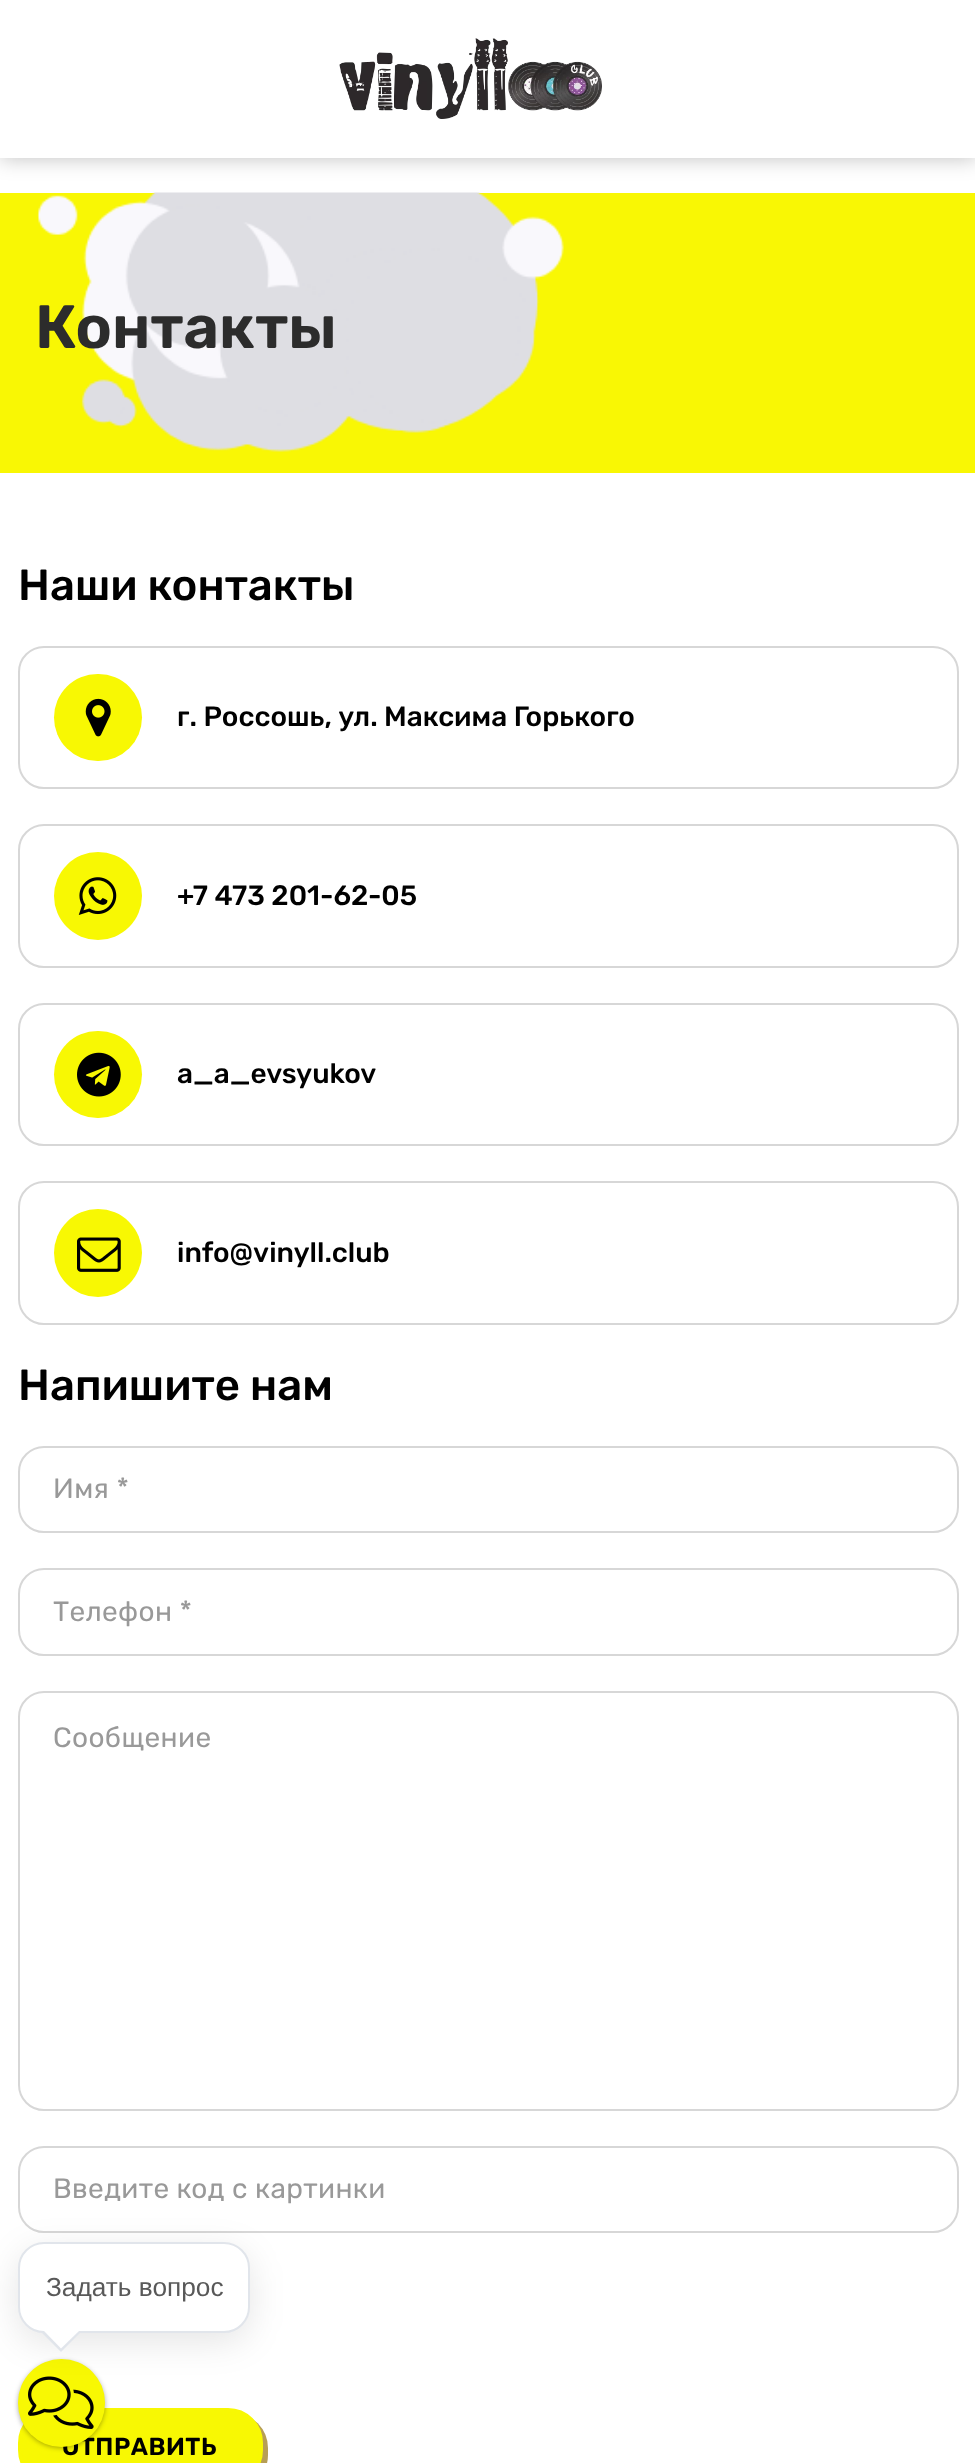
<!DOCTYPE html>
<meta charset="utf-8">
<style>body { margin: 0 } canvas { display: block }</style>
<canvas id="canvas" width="975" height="2463"></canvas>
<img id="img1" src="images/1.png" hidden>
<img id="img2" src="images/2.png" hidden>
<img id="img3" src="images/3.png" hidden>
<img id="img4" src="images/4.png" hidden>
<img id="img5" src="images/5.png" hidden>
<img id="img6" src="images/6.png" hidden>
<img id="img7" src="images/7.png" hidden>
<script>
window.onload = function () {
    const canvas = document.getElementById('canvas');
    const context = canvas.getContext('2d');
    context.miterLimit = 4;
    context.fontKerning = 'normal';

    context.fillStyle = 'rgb(255, 255, 255)';
    context.fillRect(0, 0, 975, 2463);
    context.fillStyle = 'rgba(0, 0, 0, 0.25)';
    context.filter = 'blur(10.5px)';
    context.beginPath();
    context.rect(0, 0, 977, 158);
    context.fill();
    context.filter = 'none';
    context.fillStyle = 'rgb(255, 255, 255)';
    context.fillRect(0, 0, 975, 158);
    context.drawImage(document.getElementById('img1'), 339, 38, 263, 81);
    context.fillStyle = 'rgb(249, 247, 4)';
    context.fillRect(0, 193, 975, 280);
    context.drawImage(document.getElementById('img2'), 37, 192, 527, 260);
    context.beginPath();
    context.roundRect(19, 647, 939, 141, 25);
    context.strokeStyle = 'rgb(215, 215, 215)';
    context.lineWidth = 2;
    context.stroke();
    context.fillStyle = 'rgb(248, 248, 3)';
    context.beginPath();
    context.roundRect(54, 674, 88, 87, 43.5);
    context.fill();
    context.drawImage(document.getElementById('img3'), 85, 698, 26, 39);
    context.beginPath();
    context.roundRect(19, 825, 939, 142, 25);
    context.stroke();
    context.beginPath();
    context.arc(98, 896, 44, 0, 2 * Math.PI);
    context.fill();
    context.drawImage(document.getElementById('img4'), 78, 877, 39, 38);
    context.beginPath();
    context.roundRect(19, 1004, 939, 141, 25);
    context.stroke();
    context.beginPath();
    context.roundRect(54, 1031, 88, 87, 43.5);
    context.fill();
    context.drawImage(document.getElementById('img5'), 77, 1052, 44, 45);
    context.beginPath();
    context.roundRect(19, 1182, 939, 142, 25);
    context.stroke();
    context.beginPath();
    context.arc(98, 1253, 44, 0, 2 * Math.PI);
    context.fill();
    context.drawImage(document.getElementById('img6'), 77, 1237, 44, 35);
    context.beginPath();
    context.roundRect(19, 1447, 939, 85, 25);
    context.stroke();
    context.beginPath();
    context.roundRect(19, 1569, 939, 86, 25);
    context.stroke();
    context.beginPath();
    context.roundRect(19, 1692, 939, 418, 25);
    context.stroke();
    context.beginPath();
    context.roundRect(19, 2147, 939, 85, 25);
    context.stroke();
    context.fillStyle = 'rgb(183, 158, 85)';
    context.beginPath();
    context.roundRect(23, 2413, 245, 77, 35);
    context.fill();
    context.fillStyle = 'rgb(248, 248, 3)';
    context.beginPath();
    context.roundRect(20, 2410, 241, 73, 33);
    context.fill();
    context.strokeStyle = 'rgb(248, 248, 3)';
    context.lineWidth = 4;
    context.stroke();
    context.fillStyle = 'rgba(0, 0, 0, 0.33)';
    context.filter = 'blur(2.5px)';
    context.beginPath();
    context.roundRect(18, 2361, 87, 87, 43.5);
    context.fill();
    context.filter = 'none';
    context.font = '600 61.25px Rubik';
    context.fillStyle = 'rgb(44, 44, 44)';
    context.fillText('Контакты', 35, 348);
    context.font = '500 43.75px Rubik';
    context.fillStyle = 'rgb(0, 0, 0)';
    context.fillText('Наши контакты', 18, 600);
    context.font = '500 28px Rubik';
    context.fillText('г. Россошь, ул. Максима Горького', 177, 726);
    context.fillText('+7 473 201-62-05', 177, 905);
    context.fillText('a_a_evsyukov', 177, 1083);
    context.fillText('info@vinyll.club', 177, 1262);
    context.font = '500 43.75px Rubik';
    context.fillText('Напишите нам', 18, 1400);
    context.letterSpacing = '0.35px';
    context.font = '28px Rubik';
    context.fillStyle = 'rgb(153, 153, 153)';
    context.fillText('Имя *', 53, 1498);
    context.fillText('Телефон *', 53, 1621);
    context.fillText('Сообщение', 53, 1747);
    context.fillText('Введите код с картинки', 53, 2198);
    context.letterSpacing = '0.5px';
    context.font = '600 24.5px Rubik';
    context.fillStyle = 'rgb(0, 0, 0)';
    context.fillText('ОТПРАВИТЬ', 62, 2455);
    context.fillStyle = 'rgb(248, 248, 3)';
    context.beginPath();
    context.roundRect(18, 2359, 87, 88, 43.5);
    context.fill();
    context.drawImage(document.getElementById('img7'), 28, 2376, 66, 53);
    context.fillStyle = 'rgba(0, 0, 0, 0.1)';
    context.filter = 'blur(17.5px)';
    context.beginPath();
    context.roundRect(18, 2251, 232, 91, 26);
    context.fill();
    context.filter = 'none';
    context.fillStyle = 'rgb(255, 255, 255)';
    context.beginPath();
    context.roundRect(19, 2243, 230, 89, 25);
    context.fill();
    context.strokeStyle = 'rgb(225, 229, 235)';
    context.lineWidth = 2;
    context.stroke();
    context.fillStyle = 'rgb(225, 229, 235)';
    context.beginPath();
    context.moveTo(40, 2331);
    context.lineTo(82, 2331);
    context.lineTo(61, 2352);
    context.closePath();
    context.fill();
    context.fillStyle = 'rgb(255, 255, 255)';
    context.beginPath();
    context.moveTo(44, 2331);
    context.lineTo(79, 2331);
    context.lineTo(61, 2348.5);
    context.closePath();
    context.fill();
    context.letterSpacing = '0px';
    context.font = '26.25px Liberation Sans';
    context.fillStyle = 'rgb(89, 89, 89)';
    context.fillText('Задать вопрос', 46, 2296);
};
</script>
